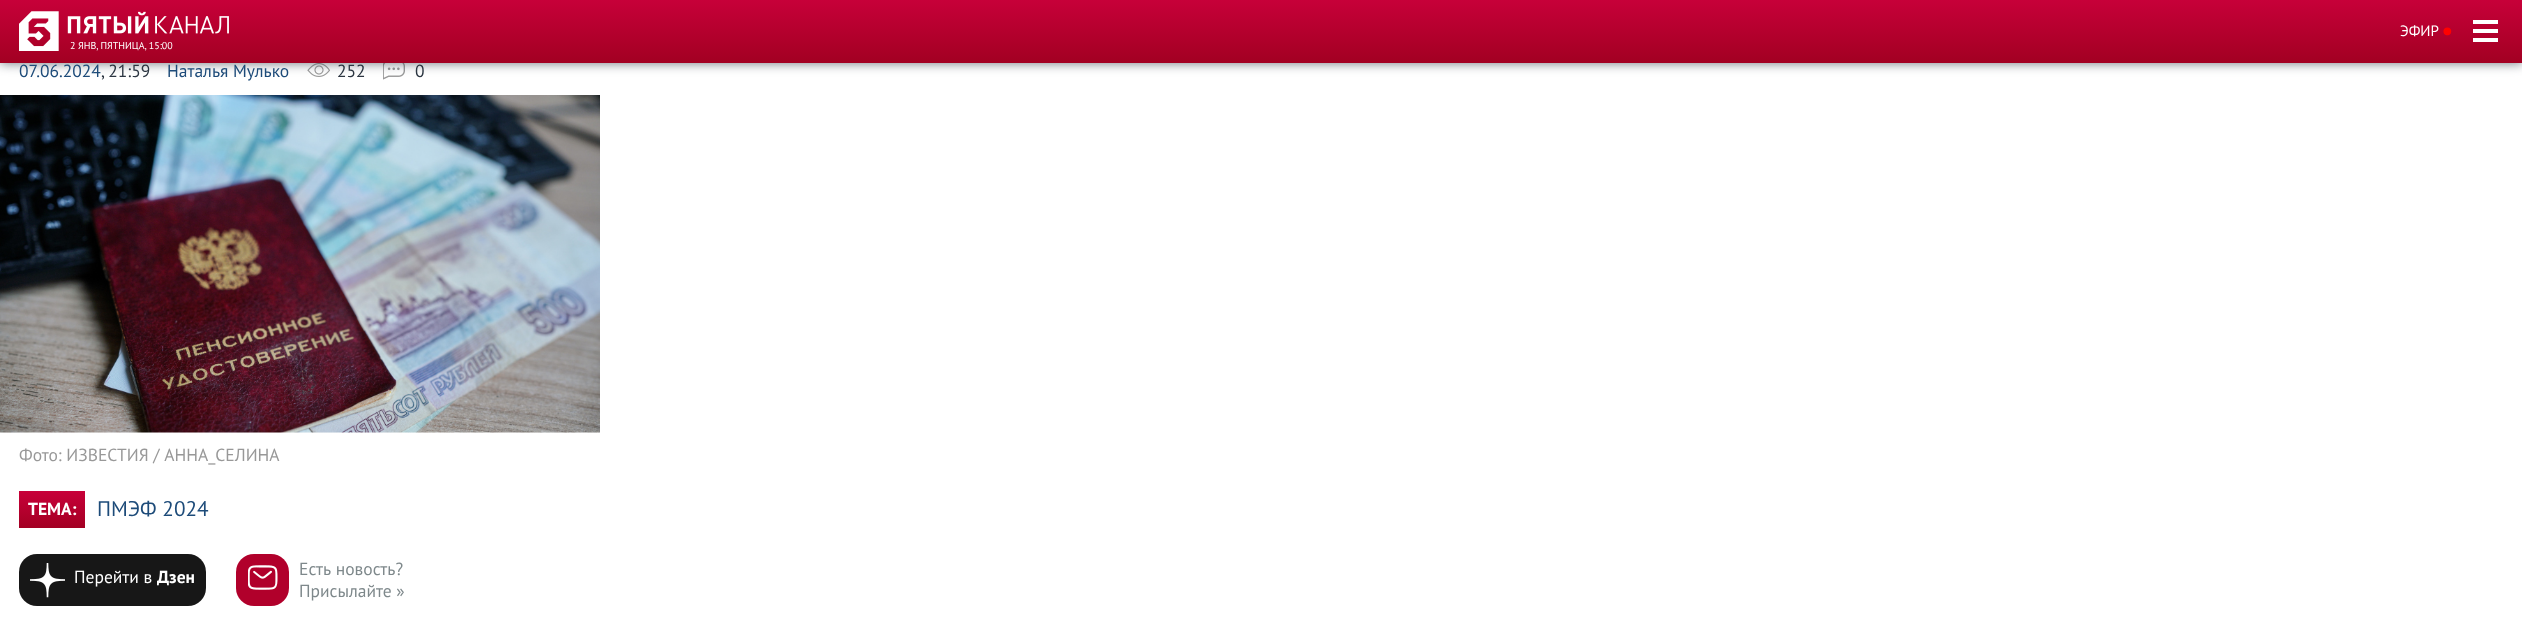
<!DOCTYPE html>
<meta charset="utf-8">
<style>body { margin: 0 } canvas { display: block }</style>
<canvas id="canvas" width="2522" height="635"></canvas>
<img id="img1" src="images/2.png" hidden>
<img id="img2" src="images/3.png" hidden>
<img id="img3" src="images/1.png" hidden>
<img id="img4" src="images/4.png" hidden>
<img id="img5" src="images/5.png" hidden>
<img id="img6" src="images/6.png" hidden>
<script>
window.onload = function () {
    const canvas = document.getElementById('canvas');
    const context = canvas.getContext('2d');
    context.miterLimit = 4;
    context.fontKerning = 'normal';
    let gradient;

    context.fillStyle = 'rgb(255, 255, 255)';
    context.fillRect(0, 0, 2522, 635);
    context.drawImage(document.getElementById('img1'), 307, 63, 23, 14);
    context.drawImage(document.getElementById('img2'), 383, 63, 22, 17);
    context.fillStyle = 'rgba(43, 53, 65, 0.7)';
    context.filter = 'blur(6px)';
    context.beginPath();
    context.rect(0, 0, 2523, 63);
    context.fill();
    context.filter = 'none';
    gradient = context.createLinearGradient(1261, 0, 1261, 63);
    gradient.addColorStop(0, 'rgb(199, 0, 57)');
    gradient.addColorStop(1, 'rgb(162, 0, 34)');
    context.fillStyle = gradient;
    context.fillRect(0, 0, 2522, 63);
    context.fillStyle = 'rgb(255, 255, 255)';
    context.fillRect(2473, 20, 25, 4);
    context.fillRect(2473, 29, 25, 4);
    context.fillRect(2473, 38, 25, 4);
    context.drawImage(document.getElementById('img3'), 19, 11, 210, 40);
    context.fillStyle = 'rgb(250, 250, 250)';
    context.fillRect(0, 432, 600, 1);
    context.drawImage(document.getElementById('img4'), 0, 95, 600, 338);
    gradient = context.createLinearGradient(52, 491, 52, 528);
    gradient.addColorStop(0, 'rgb(200, 0, 57)');
    gradient.addColorStop(1, 'rgb(163, 0, 35)');
    context.fillStyle = gradient;
    context.fillRect(19, 491, 66, 37);
    context.fillStyle = 'rgb(23, 23, 23)';
    context.beginPath();
    context.roundRect(19, 554, 187, 52, 18);
    context.fill();
    context.drawImage(document.getElementById('img5'), 30, 563, 35, 35);
    context.fillStyle = 'rgb(177, 0, 43)';
    context.beginPath();
    context.roundRect(236, 554, 53, 52, 18);
    context.fill();
    context.drawImage(document.getElementById('img6'), 248, 565, 30, 25);
    context.font = '15px PT Sans';
    context.fillStyle = 'rgb(255, 255, 255)';
    context.fillText('ЭФИР', 2400, 36);
    context.font = '28px PT Sans';
    context.fillStyle = 'rgb(255, 0, 0)';
    context.fillText('•', 2441, 40);
    context.font = '10px PT Sans';
    context.fillStyle = 'rgb(255, 255, 255)';
    context.fillText('2 ЯНВ, ПЯТНИЦА, 15:00', 70, 49);
    context.font = '17.5px PT Sans';
    context.fillStyle = 'rgb(29, 75, 121)';
    context.fillText('07.06.2024', 19, 77);
    context.fillStyle = 'rgb(43, 53, 65)';
    context.fillText(', 21:59', 101, 77);
    context.fillStyle = 'rgb(29, 75, 121)';
    context.fillText('Наталья Мулько', 167, 77);
    context.fillStyle = 'rgb(43, 53, 65)';
    context.fillText('252', 337, 77);
    context.fillText('0', 415, 77);
    context.fillStyle = 'rgb(152, 152, 152)';
    context.fillText('Фото: ИЗВЕСТИЯ / АННА_СЕЛИНА', 19, 461);
    context.font = 'bold 17.5px PT Sans';
    context.fillStyle = 'rgb(255, 255, 255)';
    context.fillText('ТЕМА:', 28, 515);
    context.font = '21.25px PT Sans';
    context.fillStyle = 'rgb(29, 75, 121)';
    context.fillText('ПМЭФ 2024', 97, 516);
    context.font = '17.5px PT Sans';
    context.fillStyle = 'rgb(255, 255, 255)';
    context.fillText('Перейти в', 74, 583);
    context.font = 'bold 17.5px PT Sans';
    context.fillText('Дзен', 157, 583);
    context.font = '17.5px PT Sans';
    context.fillStyle = 'rgb(126, 136, 139)';
    context.fillText('Есть новость?', 299, 575);
    context.fillText('Присылайте »', 299, 597);
};
</script>
